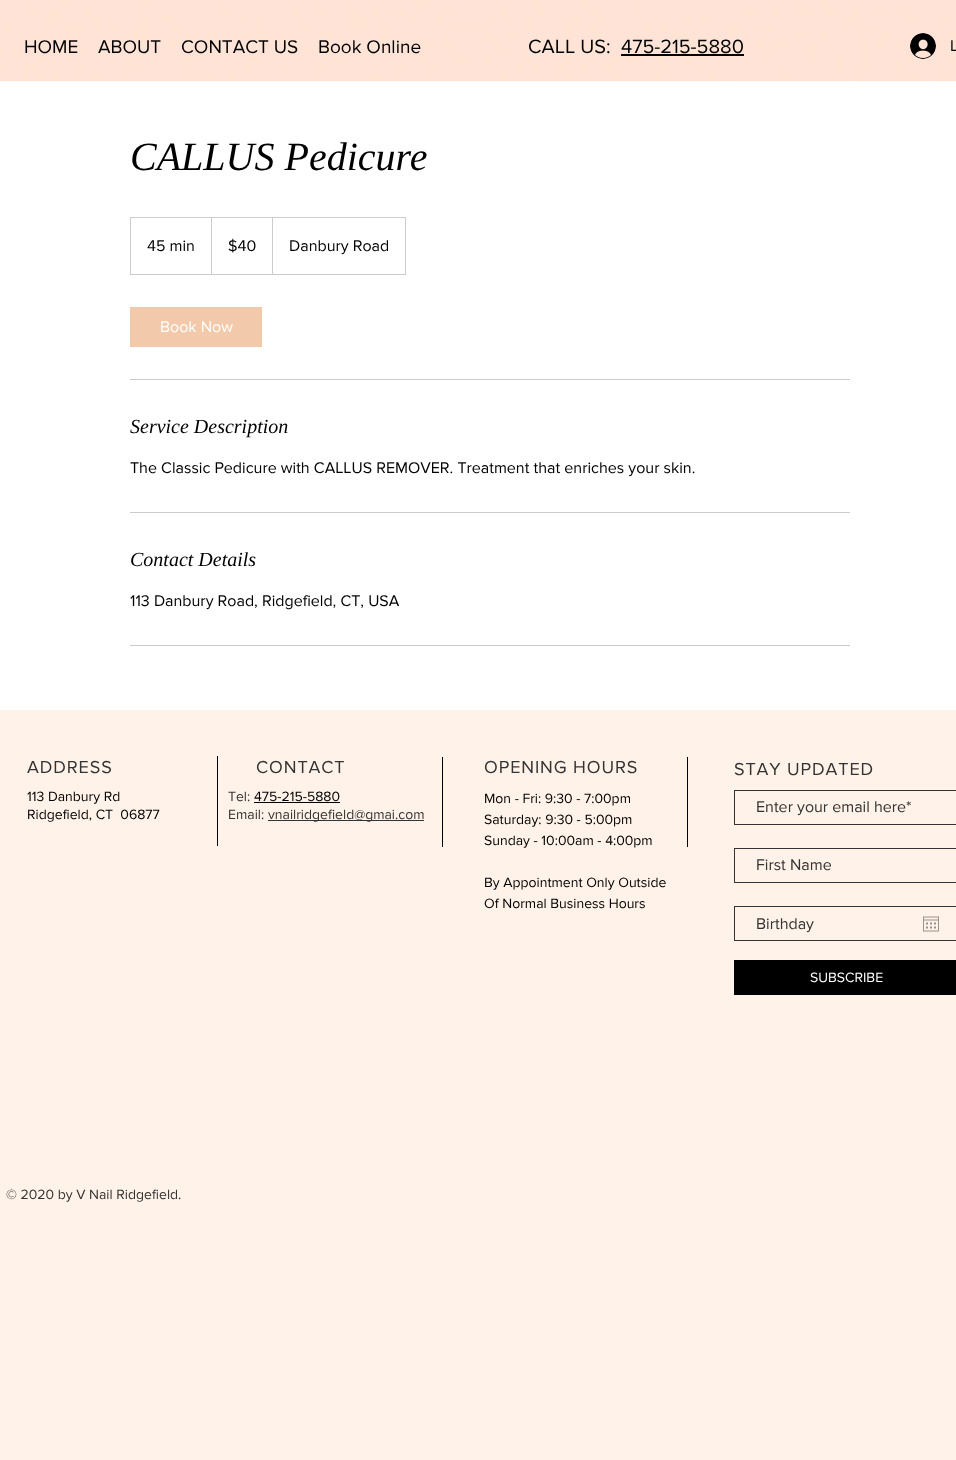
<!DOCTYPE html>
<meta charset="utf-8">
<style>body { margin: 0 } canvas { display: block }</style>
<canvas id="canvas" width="956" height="1460"></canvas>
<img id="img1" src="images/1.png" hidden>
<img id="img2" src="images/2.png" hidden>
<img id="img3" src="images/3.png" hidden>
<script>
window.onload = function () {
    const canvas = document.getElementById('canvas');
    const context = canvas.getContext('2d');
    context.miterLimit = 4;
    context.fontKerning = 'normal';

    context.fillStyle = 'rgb(255, 242, 232)';
    context.fillRect(0, 0, 956, 1460);
    context.drawImage(document.getElementById('img1'), 0, 0, 956, 81);
    context.fillStyle = 'rgb(0, 0, 0)';
    context.fillRect(621, 54, 123, 2);
    context.drawImage(document.getElementById('img2'), 910, 33, 26, 26);
    context.fillStyle = 'rgb(255, 255, 255)';
    context.fillRect(0, 81, 956, 629);
    context.strokeStyle = 'rgb(204, 204, 204)';
    context.strokeRect(130.5, 217.5, 275, 57);
    context.fillStyle = 'rgb(204, 204, 204)';
    context.beginPath();
    context.moveTo(211, 274);
    context.lineTo(211, 217);
    context.lineTo(212, 218);
    context.lineTo(212, 274);
    context.closePath();
    context.fill();
    context.beginPath();
    context.moveTo(272, 274);
    context.lineTo(272, 217);
    context.lineTo(273, 218);
    context.lineTo(273, 274);
    context.closePath();
    context.fill();
    context.fillStyle = 'rgb(242, 201, 170)';
    context.fillRect(130, 307, 132, 40);
    context.fillStyle = 'rgb(204, 204, 204)';
    context.fillRect(130, 379, 720, 1);
    context.fillRect(130, 512, 720, 1);
    context.fillRect(130, 645, 720, 1);
    context.fillStyle = 'rgb(0, 0, 0)';
    context.fillRect(217, 756, 1, 90);
    context.fillRect(442, 757, 1, 90);
    context.fillRect(687, 757, 1, 90);
    context.strokeStyle = 'rgb(51, 51, 51)';
    context.strokeRect(734.5, 790.5, 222, 34);
    context.strokeRect(734.5, 848.5, 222, 34);
    context.strokeRect(734.5, 906.5, 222, 34);
    context.drawImage(document.getElementById('img3'), 923, 916, 16, 16);
    context.fillRect(734, 960, 222, 35);
    context.fillRect(254, 802, 86, 1);
    context.fillStyle = 'rgb(51, 51, 51)';
    context.fillRect(268, 820, 156, 1);
    context.font = '19px "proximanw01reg"';
    context.fillStyle = 'rgb(0, 0, 0)';
    context.fillText('HOME', 24, 53);
    context.fillText('ABOUT', 98, 53);
    context.fillText('CONTACT US', 181, 53);
    context.fillText('Book Online', 318, 53);
    context.font = '20px "proximanw01reg"';
    context.fillText('CALL US:', 528, 53);
    context.fillText('475-215-5880', 621, 53);
    context.font = '16px "proximanw01reg"';
    context.fillText('L', 950, 51);
    context.font = 'italic 40px Liberation Serif';
    context.fillText('CALLUS Pedicure', 130, 170);
    context.font = '16px "proximanw01reg"';
    context.fillText('45 min', 147, 251);
    context.fillText('$40', 228, 251);
    context.fillText('Danbury Road', 289, 251);
    context.fillStyle = 'rgb(255, 255, 255)';
    context.fillText('Book Now', 160, 332);
    context.font = 'italic 20px Liberation Serif';
    context.fillStyle = 'rgb(0, 0, 0)';
    context.fillText('Service Description', 130, 433);
    context.font = '16px "proximanw01reg"';
    context.fillText('The Classic Pedicure with CALLUS REMOVER. Treatment that enriches your skin.', 130, 473);
    context.font = 'italic 20px Liberation Serif';
    context.fillText('Contact Details', 130, 566);
    context.font = '16px "proximanw01reg"';
    context.fillText('113 Danbury Road, Ridgefield, CT, USA', 130, 606);
    context.letterSpacing = '0.9px';
    context.font = '18px "proximanw01reg"';
    context.fillStyle = 'rgb(51, 51, 51)';
    context.fillText('ADDRESS', 27, 773);
    context.fillText('CONTACT', 256, 773);
    context.fillText('OPENING HOURS', 484, 773);
    context.fillText('STAY UPDATED', 734, 775);
    context.letterSpacing = '0px';
    context.font = '16px "proximanw01reg"';
    context.fillText('Enter your email here*', 756, 812);
    context.fillText('First Name', 756, 870);
    context.fillText('Birthday', 756, 929);
    context.font = '14px "proximanw01reg"';
    context.fillStyle = 'rgb(255, 255, 255)';
    context.fillText('SUBSCRIBE', 810, 982);
    context.fillStyle = 'rgb(0, 0, 0)';
    context.fillText('113 Danbury Rd', 27, 801);
    context.fillText('Ridgefield, CT  06877', 27, 819);
    context.fillStyle = 'rgb(51, 51, 51)';
    context.fillText('Tel:', 228, 801);
    context.fillStyle = 'rgb(0, 0, 0)';
    context.fillText('475-215-5880', 254, 801);
    context.fillStyle = 'rgb(51, 51, 51)';
    context.fillText('Email:', 228, 819);
    context.fillText('vnailridgefield@gmai.com', 268, 819);
    context.fillStyle = 'rgb(0, 0, 0)';
    context.fillText('Mon - Fri: 9:30 - 7:00pm', 484, 803);
    context.fillText('Saturday: 9:30 - 5:00pm', 484, 824);
    context.fillText('Sunday - 10:00am - 4:00pm', 484, 845);
    context.fillText('By Appointment Only Outside', 484, 887);
    context.fillText('Of Normal Business Hours', 484, 908);
    context.fillStyle = 'rgb(51, 51, 51)';
    context.fillText('© 2020 by V Nail Ridgefield.', 6, 1199);
};
</script>
